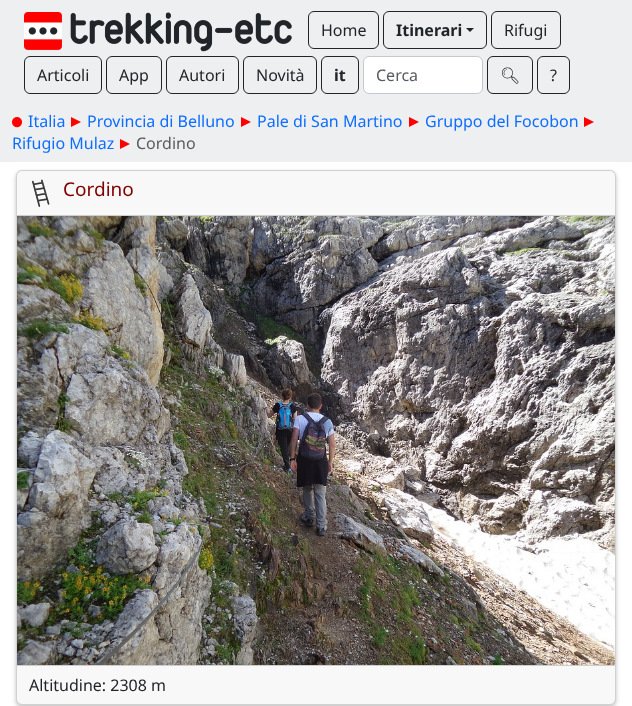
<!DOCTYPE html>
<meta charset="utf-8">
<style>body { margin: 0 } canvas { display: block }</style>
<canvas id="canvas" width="632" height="706"></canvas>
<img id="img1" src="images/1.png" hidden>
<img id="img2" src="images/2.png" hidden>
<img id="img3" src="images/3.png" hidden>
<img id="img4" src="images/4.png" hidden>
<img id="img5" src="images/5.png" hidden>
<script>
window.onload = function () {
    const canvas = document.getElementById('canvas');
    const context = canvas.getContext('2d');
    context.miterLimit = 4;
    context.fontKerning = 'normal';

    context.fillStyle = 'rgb(255, 255, 255)';
    context.fillRect(0, 0, 632, 706);
    context.fillStyle = 'rgb(238, 239, 240)';
    context.fillRect(0, 0, 632, 162);
    context.drawImage(document.getElementById('img1'), 24, 12, 268, 40);
    context.beginPath();
    context.roundRect(308.5, 11.5, 70, 37, 5.5);
    context.strokeStyle = 'rgb(33, 37, 41)';
    context.stroke();
    context.beginPath();
    context.roundRect(383.5, 11.5, 103, 37, 5.5);
    context.stroke();
    context.fillStyle = 'rgb(33, 37, 41)';
    context.beginPath();
    context.moveTo(466, 28);
    context.lineTo(474, 28);
    context.lineTo(470, 32);
    context.closePath();
    context.fill();
    context.beginPath();
    context.roundRect(491.5, 11.5, 69, 37, 5.5);
    context.stroke();
    context.beginPath();
    context.roundRect(24.5, 56.5, 77, 37, 5.5);
    context.stroke();
    context.beginPath();
    context.roundRect(106.5, 56.5, 55, 37, 5.5);
    context.stroke();
    context.beginPath();
    context.roundRect(166.5, 56.5, 72, 37, 5.5);
    context.stroke();
    context.beginPath();
    context.roundRect(243.5, 56.5, 73, 37, 5.5);
    context.stroke();
    context.beginPath();
    context.roundRect(321.5, 56.5, 37, 37, 5.5);
    context.stroke();
    context.fillStyle = 'rgb(255, 255, 255)';
    context.beginPath();
    context.roundRect(363.5, 56.5, 119, 37, 5.5);
    context.fill();
    context.strokeStyle = 'rgb(197, 201, 205)';
    context.stroke();
    context.beginPath();
    context.roundRect(487.5, 56.5, 45, 37, 5.5);
    context.strokeStyle = 'rgb(33, 37, 41)';
    context.stroke();
    context.beginPath();
    context.roundRect(537.5, 56.5, 32, 37, 5.5);
    context.stroke();
    context.drawImage(document.getElementById('img2'), 12, 117, 10, 11);
    context.drawImage(document.getElementById('img3'), 71, 117, 10, 10);
    context.drawImage(document.getElementById('img3'), 241, 117, 10, 10);
    context.drawImage(document.getElementById('img3'), 409, 117, 10, 10);
    context.drawImage(document.getElementById('img3'), 584, 117, 10, 10);
    context.drawImage(document.getElementById('img3'), 120, 139, 10, 10);
    context.fillStyle = 'rgba(0, 0, 0, 0.25)';
    context.filter = 'blur(2px)';
    context.beginPath();
    context.roundRect(16, 172, 600, 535, 6);
    context.fill();
    context.filter = 'none';
    context.fillStyle = 'rgb(255, 255, 255)';
    context.beginPath();
    context.roundRect(16, 170, 600, 535, 6);
    context.fill();
    context.beginPath();
    context.roundRect(16.5, 170.5, 599, 534, 5.5);
    context.strokeStyle = 'rgba(0, 0, 0, 0.18)';
    context.stroke();
    context.fillStyle = 'rgba(33, 37, 41, 0.03)';
    context.fillRect(17, 171, 598, 44);
    context.fillStyle = 'rgb(205, 205, 205)';
    context.fillRect(17, 215, 598, 1);
    context.drawImage(document.getElementById('img4'), 32, 179, 18, 28);
    context.drawImage(document.getElementById('img5'), 17, 216, 598, 449);
    context.fillStyle = 'rgba(33, 37, 41, 0.03)';
    context.fillRect(17, 666, 598, 38);
    context.fillStyle = 'rgb(205, 205, 205)';
    context.fillRect(17, 665, 598, 1);
    context.font = '16px Noto Sans';
    context.fillStyle = 'rgb(33, 37, 41)';
    context.fillText('Home', 321, 36);
    context.font = 'bold 16px Noto Sans';
    context.fillText('Itinerari', 396, 36);
    context.font = '16px Noto Sans';
    context.fillText('Rifugi', 504, 36);
    context.fillText('Articoli', 37, 81);
    context.fillText('App', 119, 81);
    context.fillText('Autori', 179, 81);
    context.fillText('Novità', 256, 81);
    context.font = 'bold 16px Noto Sans';
    context.fillText('it', 334, 81);
    context.font = '16px Noto Sans';
    context.fillStyle = 'rgb(89, 92, 95)';
    context.fillText('Cerca', 376, 81);
    context.font = '16px Noto Emoji';
    context.fillStyle = 'rgb(33, 37, 41)';
    context.fillText('🔍︎', 500, 81);
    context.font = '16px Noto Sans';
    context.fillText('?', 550, 81);
    context.fillStyle = 'rgb(13, 110, 253)';
    context.fillText('Italia', 28, 127);
    context.fillText('Provincia di Belluno', 87, 127);
    context.fillText('Pale di San Martino', 257, 127);
    context.fillText('Gruppo del Focobon', 425, 127);
    context.fillText('Rifugio Mulaz', 12, 149);
    context.fillStyle = 'rgb(89, 92, 95)';
    context.fillText('Cordino', 136, 149);
    context.font = '19px Noto Sans';
    context.fillStyle = 'rgb(128, 0, 0)';
    context.fillText('Cordino', 63, 196);
    context.font = '16px Noto Sans';
    context.fillStyle = 'rgb(33, 37, 41)';
    context.fillText('Altitudine: 2308 m', 29, 691);
};
</script>
